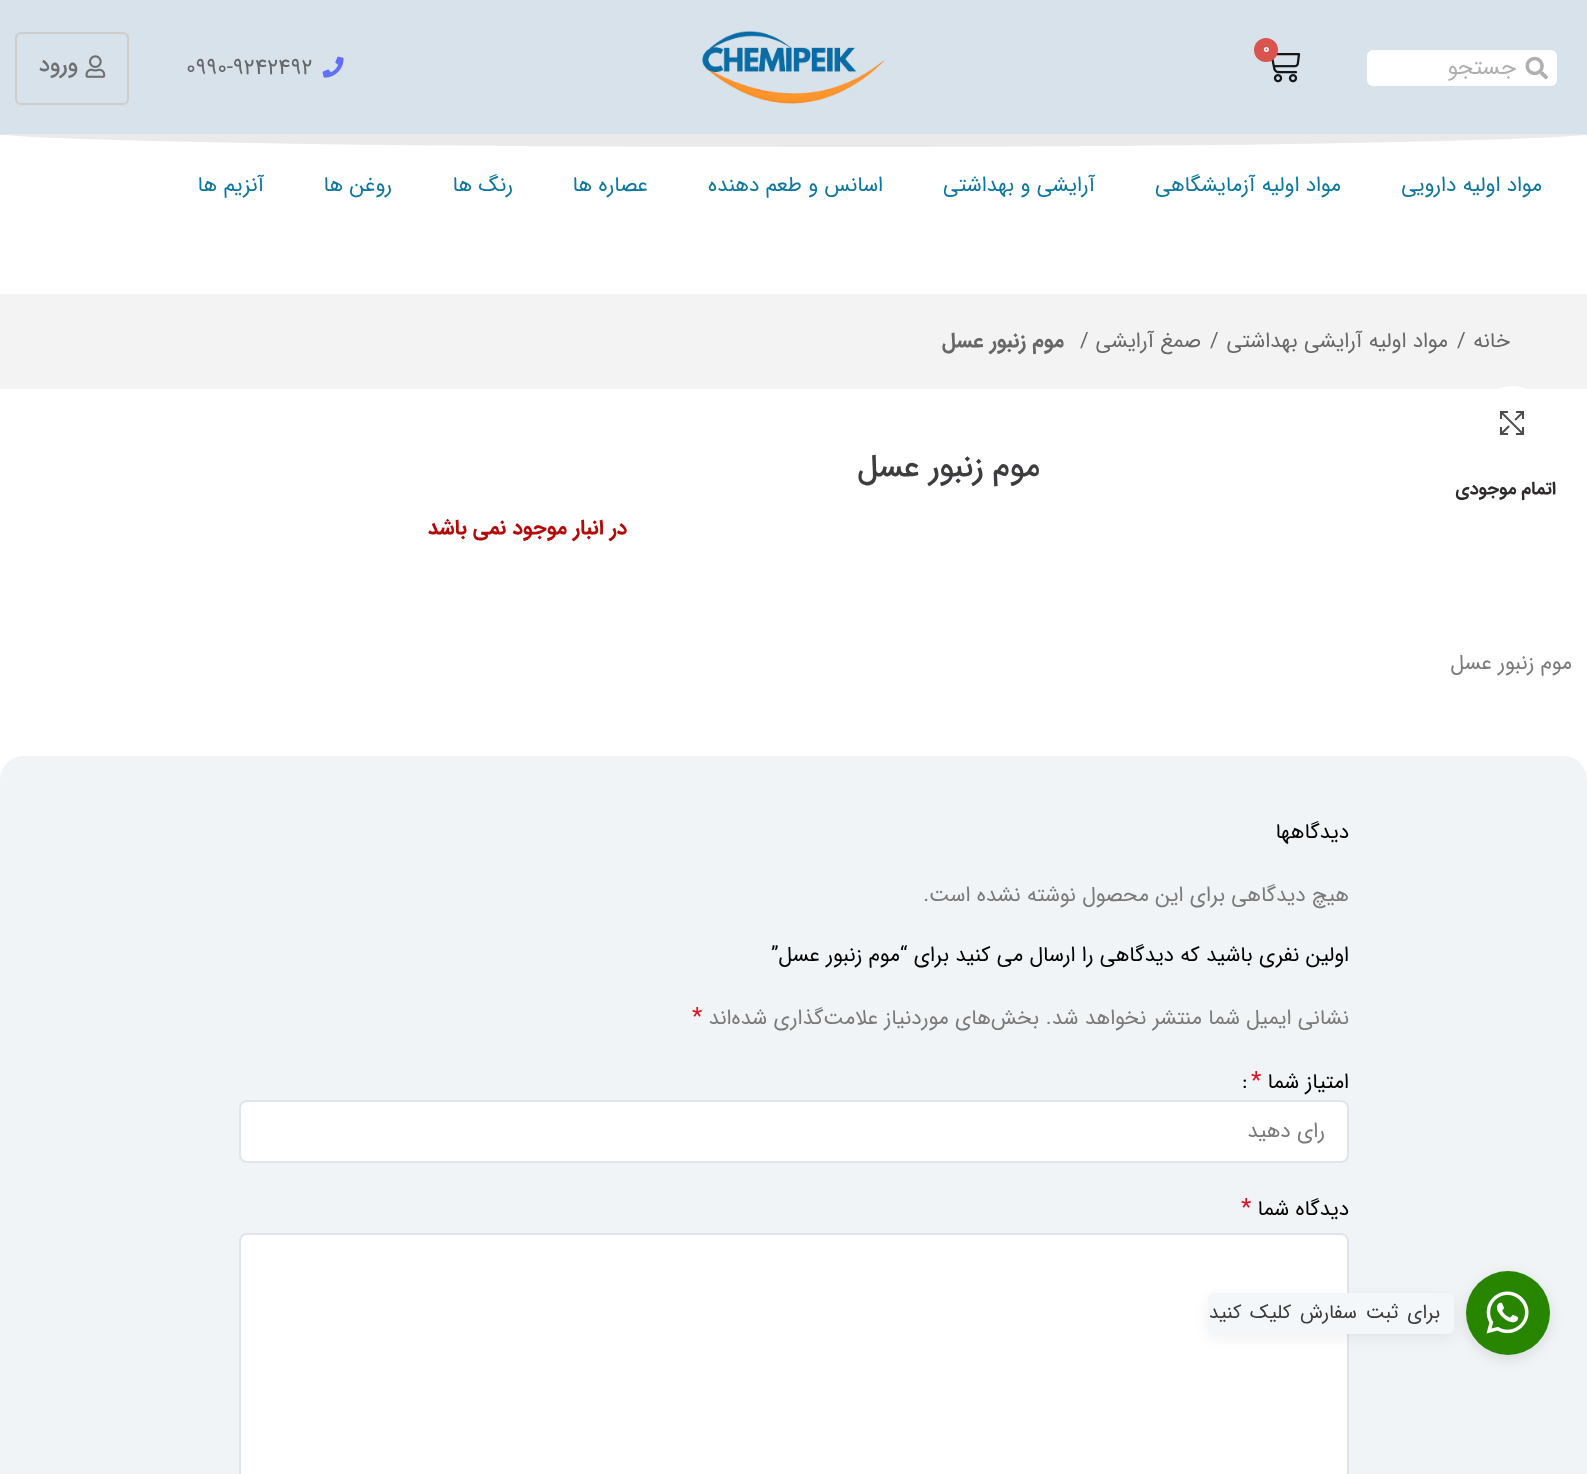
<!DOCTYPE html>
<meta charset="utf-8">
<style>body { margin: 0 } canvas { display: block }</style>
<canvas id="canvas" width="1587" height="1474"></canvas>
<img id="img1" src="images/1.png" hidden>
<img id="img2" src="images/2.png" hidden>
<img id="img3" src="images/3.png" hidden>
<img id="img4" src="images/4.png" hidden>
<img id="img5" src="images/5.png" hidden>
<img id="img6" src="images/6.png" hidden>
<img id="img7" src="images/7.png" hidden>
<script>
window.onload = function () {
    const canvas = document.getElementById('canvas');
    const context = canvas.getContext('2d');
    context.miterLimit = 4;
    context.fontKerning = 'normal';

    context.fillStyle = 'rgb(255, 255, 255)';
    context.fillRect(0, 0, 1587, 1474);
    context.fillStyle = 'rgb(215, 226, 235)';
    context.fillRect(0, 0, 1587, 135);
    context.drawImage(document.getElementById('img1'), 1271, 53, 30, 30);
    context.fillStyle = 'rgb(217, 83, 79)';
    context.beginPath();
    context.arc(1266, 50, 12, 0, 2 * Math.PI);
    context.fill();
    context.fillStyle = 'rgb(255, 255, 255)';
    context.beginPath();
    context.roundRect(1367, 50, 190, 36, 6);
    context.fill();
    context.drawImage(document.getElementById('img2'), 1525, 56, 23, 24);
    context.drawImage(document.getElementById('img3'), 702, 31, 183, 73);
    context.drawImage(document.getElementById('img4'), 322, 56, 22, 22);
    context.beginPath();
    context.roundRect(16, 33, 112, 71, 5);
    context.strokeStyle = 'rgb(205, 205, 205)';
    context.lineWidth = 2;
    context.stroke();
    context.drawImage(document.getElementById('img5'), 85, 55, 21, 23);
    context.fillStyle = 'rgb(234, 234, 234)';
    context.beginPath();
    context.moveTo(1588, 134);
    context.lineTo(-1, 134);
    context.bezierCurveTo(0, 137, 200, 147, 794, 147);
    context.bezierCurveTo(1387, 147, 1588, 137, 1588, 134);
    context.closePath();
    context.fill();
    context.fillStyle = 'rgb(243, 243, 244)';
    context.fillRect(0, 294, 1587, 95);
    context.fillStyle = 'rgba(255, 255, 255, 0.9)';
    context.beginPath();
    context.arc(1512.5, 423.5, 37.5, 0, 2 * Math.PI);
    context.fill();
    context.drawImage(document.getElementById('img6'), 1500, 411, 24, 24);
    context.fillStyle = 'rgb(240, 244, 246)';
    context.beginPath();
    context.roundRect(0, 756, 1587, 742, 24);
    context.fill();
    context.fillStyle = 'rgb(255, 255, 255)';
    context.beginPath();
    context.roundRect(240, 1101, 1108, 61, 7);
    context.fill();
    context.strokeStyle = 'rgb(224, 228, 237)';
    context.stroke();
    context.beginPath();
    context.roundRect(240, 1234, 1108, 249, 7);
    context.fill();
    context.stroke();
    context.fillStyle = 'rgba(0, 0, 0, 0.1)';
    context.filter = 'blur(7px)';
    context.beginPath();
    context.roundRect(1466, 1275, 84, 84, 42);
    context.fill();
    context.filter = 'none';
    context.fillStyle = 'rgb(40, 133, 0)';
    context.beginPath();
    context.arc(1508, 1313, 42, 0, 2 * Math.PI);
    context.fill();
    context.drawImage(document.getElementById('img7'), 1486, 1291, 43, 43);
    context.fillStyle = 'rgba(0, 0, 0, 0.06)';
    context.filter = 'blur(7px)';
    context.beginPath();
    context.roundRect(1208, 1298, 246, 40, 6);
    context.fill();
    context.filter = 'none';
    context.fillStyle = 'rgb(244, 247, 250)';
    context.beginPath();
    context.roundRect(1208, 1293, 246, 41, 6);
    context.fill();
    context.font = 'bold 15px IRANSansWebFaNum';
    context.fillStyle = 'rgb(255, 255, 255)';
    context.fillText('0', 1263, 53);
    context.direction = 'rtl';
    context.font = '22.5px IRANSansWebFaNum';
    context.fillStyle = 'rgb(175, 175, 175)';
    context.fillText('جستجو', 1516, 74);
    context.direction = 'ltr';
    context.fillStyle = 'rgb(103, 103, 103)';
    context.fillText('0990-9242492', 186, 74);
    context.direction = 'rtl';
    context.font = '500 22.5px IRANSansWebFaNum';
    context.fillStyle = 'rgb(112, 112, 112)';
    context.fillText('ورود', 78, 71);
    context.font = '21px IRANSansWebFaNum';
    context.fillStyle = 'rgb(11, 118, 158)';
    context.fillText('مواد اولیه دارویی', 1542, 191);
    context.fillText('مواد اولیه آزمایشگاهی', 1341, 191);
    context.fillText('آرایشی و بهداشتی', 1095, 191);
    context.fillText('اسانس و طعم دهنده', 883, 191);
    context.fillText('عصاره ها', 648, 191);
    context.fillText('رنگ ها', 513, 191);
    context.fillText('روغن ها', 392, 191);
    context.fillText('آنزیم ها', 264, 191);
    context.fillStyle = 'rgb(103, 103, 103)';
    context.fillText('خانه', 1510, 347);
    context.direction = 'ltr';
    context.fillText('/', 1457, 347);
    context.direction = 'rtl';
    context.fillText('مواد اولیه آرایشی بهداشتی', 1448, 347);
    context.direction = 'ltr';
    context.fillText('/', 1210, 347);
    context.direction = 'rtl';
    context.fillText('صمغ آرایشی', 1201, 347);
    context.direction = 'ltr';
    context.fillText('/', 1080, 347);
    context.direction = 'rtl';
    context.font = 'bold 21px IRANSansWebFaNum';
    context.fillText('موم زنبور عسل', 1064, 347);
    context.letterSpacing = '0.6px';
    context.wordSpacing = '-1px';
    context.font = 'bold 18px IRANSansWebFaNum';
    context.fillStyle = 'rgb(45, 42, 42)';
    context.fillText('اتمام موجودی', 1556, 494);
    context.letterSpacing = '0px';
    context.wordSpacing = '0px';
    context.font = '500 31.5px IRANSansWebFaNum';
    context.fillStyle = 'rgb(61, 61, 64)';
    context.fillText('موم زنبور عسل', 1040, 476);
    context.font = 'bold 21px IRANSansWebFaNum';
    context.fillStyle = 'rgb(181, 8, 8)';
    context.fillText('در انبار موجود نمی باشد', 627, 534);
    context.font = '21px IRANSansWebFaNum';
    context.fillStyle = 'rgb(122, 122, 122)';
    context.fillText('موم زنبور عسل', 1572, 669);
    context.fillStyle = 'rgb(0, 0, 0)';
    context.fillText('دیدگاهها', 1349, 838);
    context.fillStyle = 'rgb(122, 122, 122)';
    context.fillText('هیچ دیدگاهی برای این محصول نوشته نشده است.', 1349, 901);
    context.fillStyle = 'rgb(0, 0, 0)';
    context.fillText('اولین نفری باشید که دیدگاهی را ارسال می کنید برای “موم زنبور عسل”', 1349, 961);
    context.fillStyle = 'rgb(122, 122, 122)';
    context.fillText('نشانی ایمیل شما منتشر نخواهد شد.', 1349, 1024);
    context.fillText('بخش‌های موردنیاز علامت‌گذاری شده‌اند', 1039, 1024);
    context.direction = 'ltr';
    context.font = '24px IRANSansWebFaNum';
    context.fillStyle = 'rgb(224, 16, 32)';
    context.fillText('*', 692, 1024);
    context.direction = 'rtl';
    context.font = '21px IRANSansWebFaNum';
    context.fillStyle = 'rgb(0, 0, 0)';
    context.fillText('امتیاز شما', 1349, 1088);
    context.direction = 'ltr';
    context.font = '24px IRANSansWebFaNum';
    context.fillStyle = 'rgb(224, 16, 32)';
    context.fillText('*', 1251, 1088);
    context.font = '21px IRANSansWebFaNum';
    context.fillStyle = 'rgb(0, 0, 0)';
    context.fillText(':', 1242, 1088);
    context.direction = 'rtl';
    context.fillStyle = 'rgb(122, 122, 122)';
    context.fillText('رای دهید', 1325, 1137);
    context.fillStyle = 'rgb(0, 0, 0)';
    context.fillText('دیدگاه شما', 1349, 1215);
    context.direction = 'ltr';
    context.font = '24px IRANSansWebFaNum';
    context.fillStyle = 'rgb(224, 16, 32)';
    context.fillText('*', 1241, 1215);
    context.letterSpacing = '-0.6px';
    context.wordSpacing = '3.5px';
    context.direction = 'rtl';
    context.font = '19.5px IRANSansWebFaNum';
    context.fillStyle = 'rgb(58, 58, 58)';
    context.fillText('برای ثبت سفارش کلیک کنید', 1440, 1318);
};
</script>
